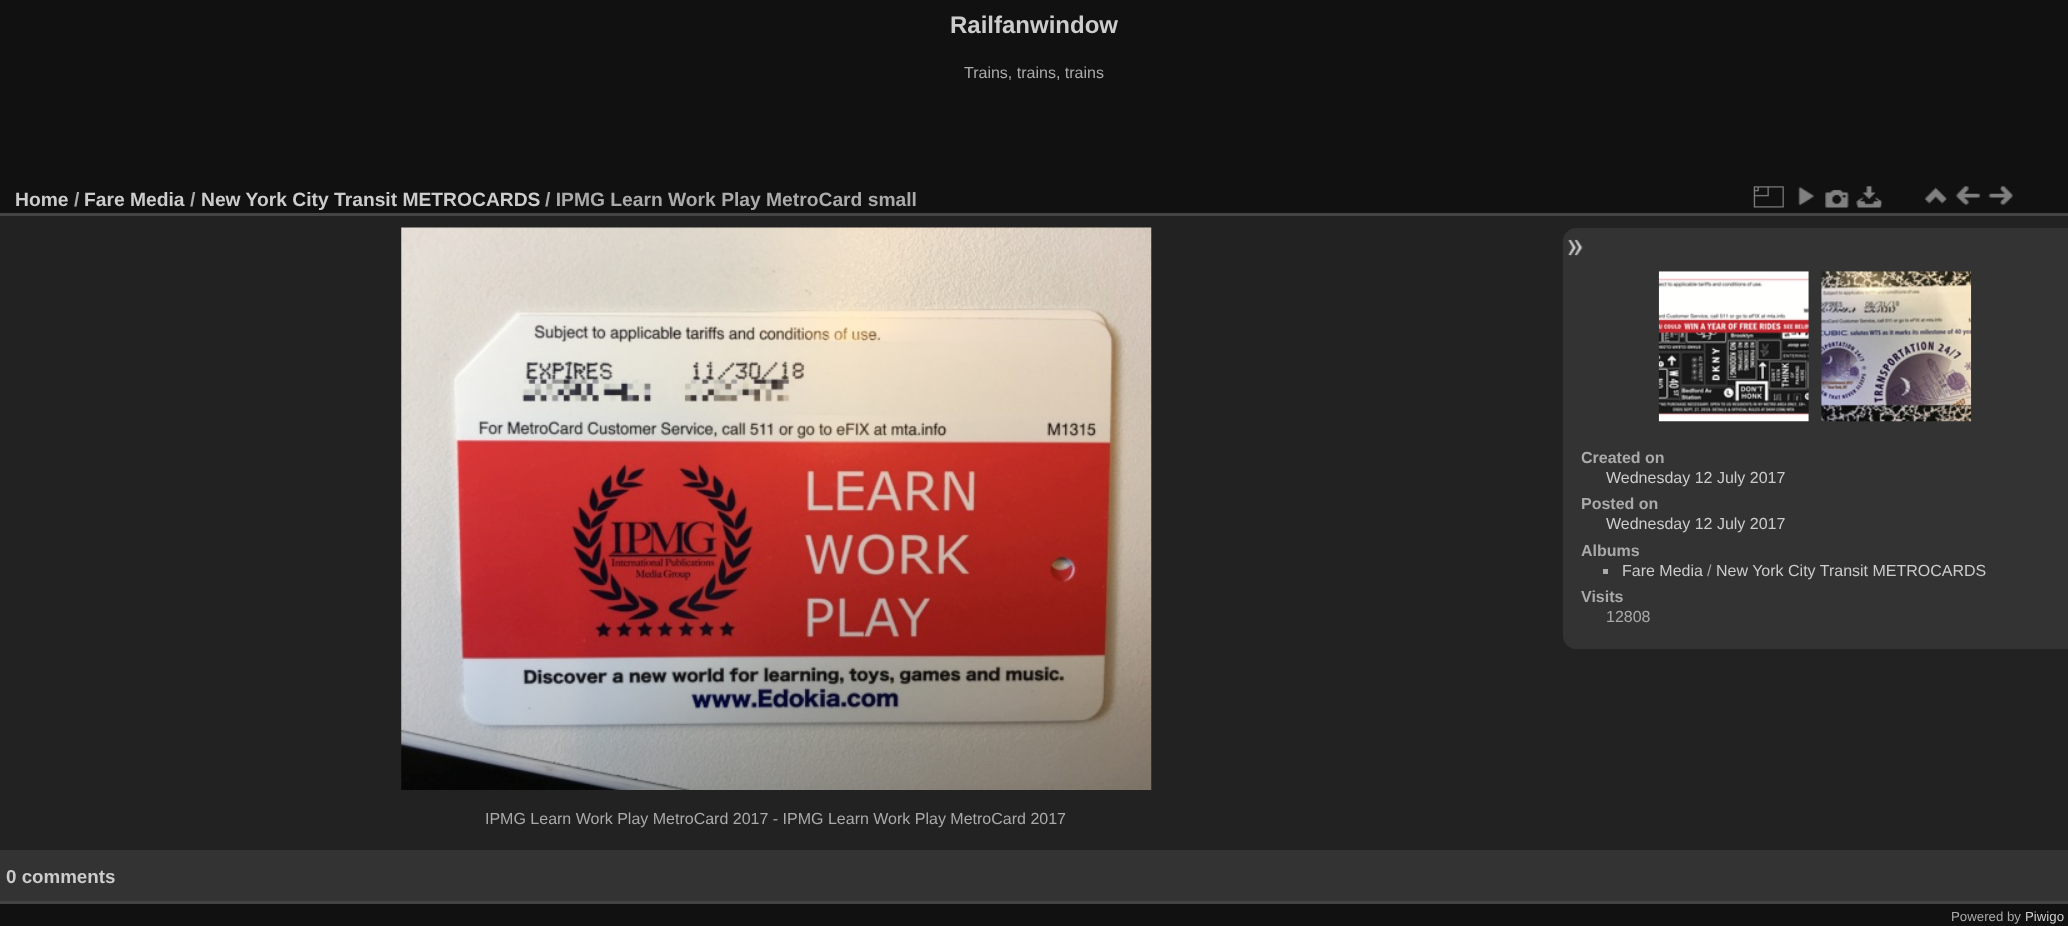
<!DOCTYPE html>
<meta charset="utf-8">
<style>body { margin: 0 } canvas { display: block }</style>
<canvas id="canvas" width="2068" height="926"></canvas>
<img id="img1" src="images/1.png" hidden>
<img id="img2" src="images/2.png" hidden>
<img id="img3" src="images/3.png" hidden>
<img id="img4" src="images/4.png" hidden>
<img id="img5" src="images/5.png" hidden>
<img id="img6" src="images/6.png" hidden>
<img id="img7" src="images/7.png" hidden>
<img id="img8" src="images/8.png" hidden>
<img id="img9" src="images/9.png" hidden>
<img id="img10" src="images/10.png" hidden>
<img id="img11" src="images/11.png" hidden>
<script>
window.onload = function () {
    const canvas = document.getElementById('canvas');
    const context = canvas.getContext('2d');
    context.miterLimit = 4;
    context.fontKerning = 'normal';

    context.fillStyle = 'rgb(17, 17, 17)';
    context.fillRect(0, 0, 2068, 926);
    context.fillStyle = 'rgb(34, 34, 34)';
    context.fillRect(0, 216, 2068, 634);
    context.fillStyle = 'rgb(68, 68, 68)';
    context.fillRect(0, 901, 2068, 3);
    context.fillRect(0, 213, 2068, 3);
    context.drawImage(document.getElementById('img1'), 1753, 186, 31, 22);
    context.drawImage(document.getElementById('img2'), 1798, 187, 16, 19);
    context.drawImage(document.getElementById('img3'), 1825, 189, 24, 19);
    context.drawImage(document.getElementById('img4'), 1856, 186, 27, 22);
    context.drawImage(document.getElementById('img5'), 1924, 187, 23, 17);
    context.drawImage(document.getElementById('img6'), 1956, 186, 25, 20);
    context.drawImage(document.getElementById('img7'), 1988, 186, 25, 20);
    context.fillStyle = 'rgb(51, 51, 51)';
    context.beginPath();
    context.moveTo(1576, 228);
    context.lineTo(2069, 228);
    context.lineTo(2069, 649);
    context.lineTo(1576, 649);
    context.bezierCurveTo(1569, 649, 1563, 643, 1563, 636);
    context.lineTo(1563, 241);
    context.bezierCurveTo(1563, 234, 1569, 228, 1576, 228);
    context.closePath();
    context.fill();
    context.drawImage(document.getElementById('img8'), 1568, 239, 15, 17);
    context.drawImage(document.getElementById('img9'), 1658, 271, 151, 151);
    context.drawImage(document.getElementById('img10'), 1821, 271, 151, 151);
    context.fillStyle = 'rgb(170, 170, 170)';
    context.fillRect(1603, 569, 5, 5);
    context.drawImage(document.getElementById('img11'), 401, 227, 751, 563);
    context.fillStyle = 'rgb(51, 51, 51)';
    context.fillRect(0, 850, 2068, 51);
    context.font = 'bold 24px Liberation Sans';
    context.fillStyle = 'rgb(204, 204, 204)';
    context.fillText('Railfanwindow', 950, 33);
    context.font = '16px Liberation Sans';
    context.fillStyle = 'rgb(170, 170, 170)';
    context.fillText('Trains, trains, trains', 964, 78);
    context.font = 'bold 19.25px Liberation Sans';
    context.fillStyle = 'rgb(204, 204, 204)';
    context.fillText('Home', 15, 206);
    context.fillStyle = 'rgb(170, 170, 170)';
    context.fillText('/', 74, 206);
    context.fillStyle = 'rgb(204, 204, 204)';
    context.fillText('Fare Media', 84, 206);
    context.fillStyle = 'rgb(170, 170, 170)';
    context.fillText('/', 190, 206);
    context.fillStyle = 'rgb(204, 204, 204)';
    context.fillText('New York City Transit METROCARDS', 201, 206);
    context.fillStyle = 'rgb(170, 170, 170)';
    context.fillText('/ IPMG Learn Work Play MetroCard small', 545, 206);
    context.font = 'bold 16px Liberation Sans';
    context.fillText('Created on', 1581, 463);
    context.font = '16px Liberation Sans';
    context.fillStyle = 'rgb(204, 204, 204)';
    context.fillText('Wednesday 12 July 2017', 1606, 483);
    context.font = 'bold 16px Liberation Sans';
    context.fillStyle = 'rgb(170, 170, 170)';
    context.fillText('Posted on', 1581, 509);
    context.font = '16px Liberation Sans';
    context.fillStyle = 'rgb(204, 204, 204)';
    context.fillText('Wednesday 12 July 2017', 1606, 529);
    context.font = 'bold 16px Liberation Sans';
    context.fillStyle = 'rgb(170, 170, 170)';
    context.fillText('Albums', 1581, 556);
    context.font = '16px Liberation Sans';
    context.fillStyle = 'rgb(204, 204, 204)';
    context.fillText('Fare Media', 1622, 576);
    context.fillStyle = 'rgb(170, 170, 170)';
    context.fillText('/', 1707, 576);
    context.fillStyle = 'rgb(204, 204, 204)';
    context.fillText('New York City Transit METROCARDS', 1716, 576);
    context.font = 'bold 16px Liberation Sans';
    context.fillStyle = 'rgb(170, 170, 170)';
    context.fillText('Visits', 1581, 602);
    context.font = '16px Liberation Sans';
    context.fillText('12808', 1606, 622);
    context.fillText('IPMG Learn Work Play MetroCard 2017 - IPMG Learn Work Play MetroCard 2017', 485, 824);
    context.font = 'bold 18.75px Liberation Sans';
    context.fillStyle = 'rgb(204, 204, 204)';
    context.fillText('0 comments', 6, 883);
    context.font = '13.25px Liberation Sans';
    context.fillStyle = 'rgb(170, 170, 170)';
    context.fillText('Powered by', 1951, 921);
    context.fillStyle = 'rgb(204, 204, 204)';
    context.fillText('Piwigo', 2025, 921);
};
</script>
